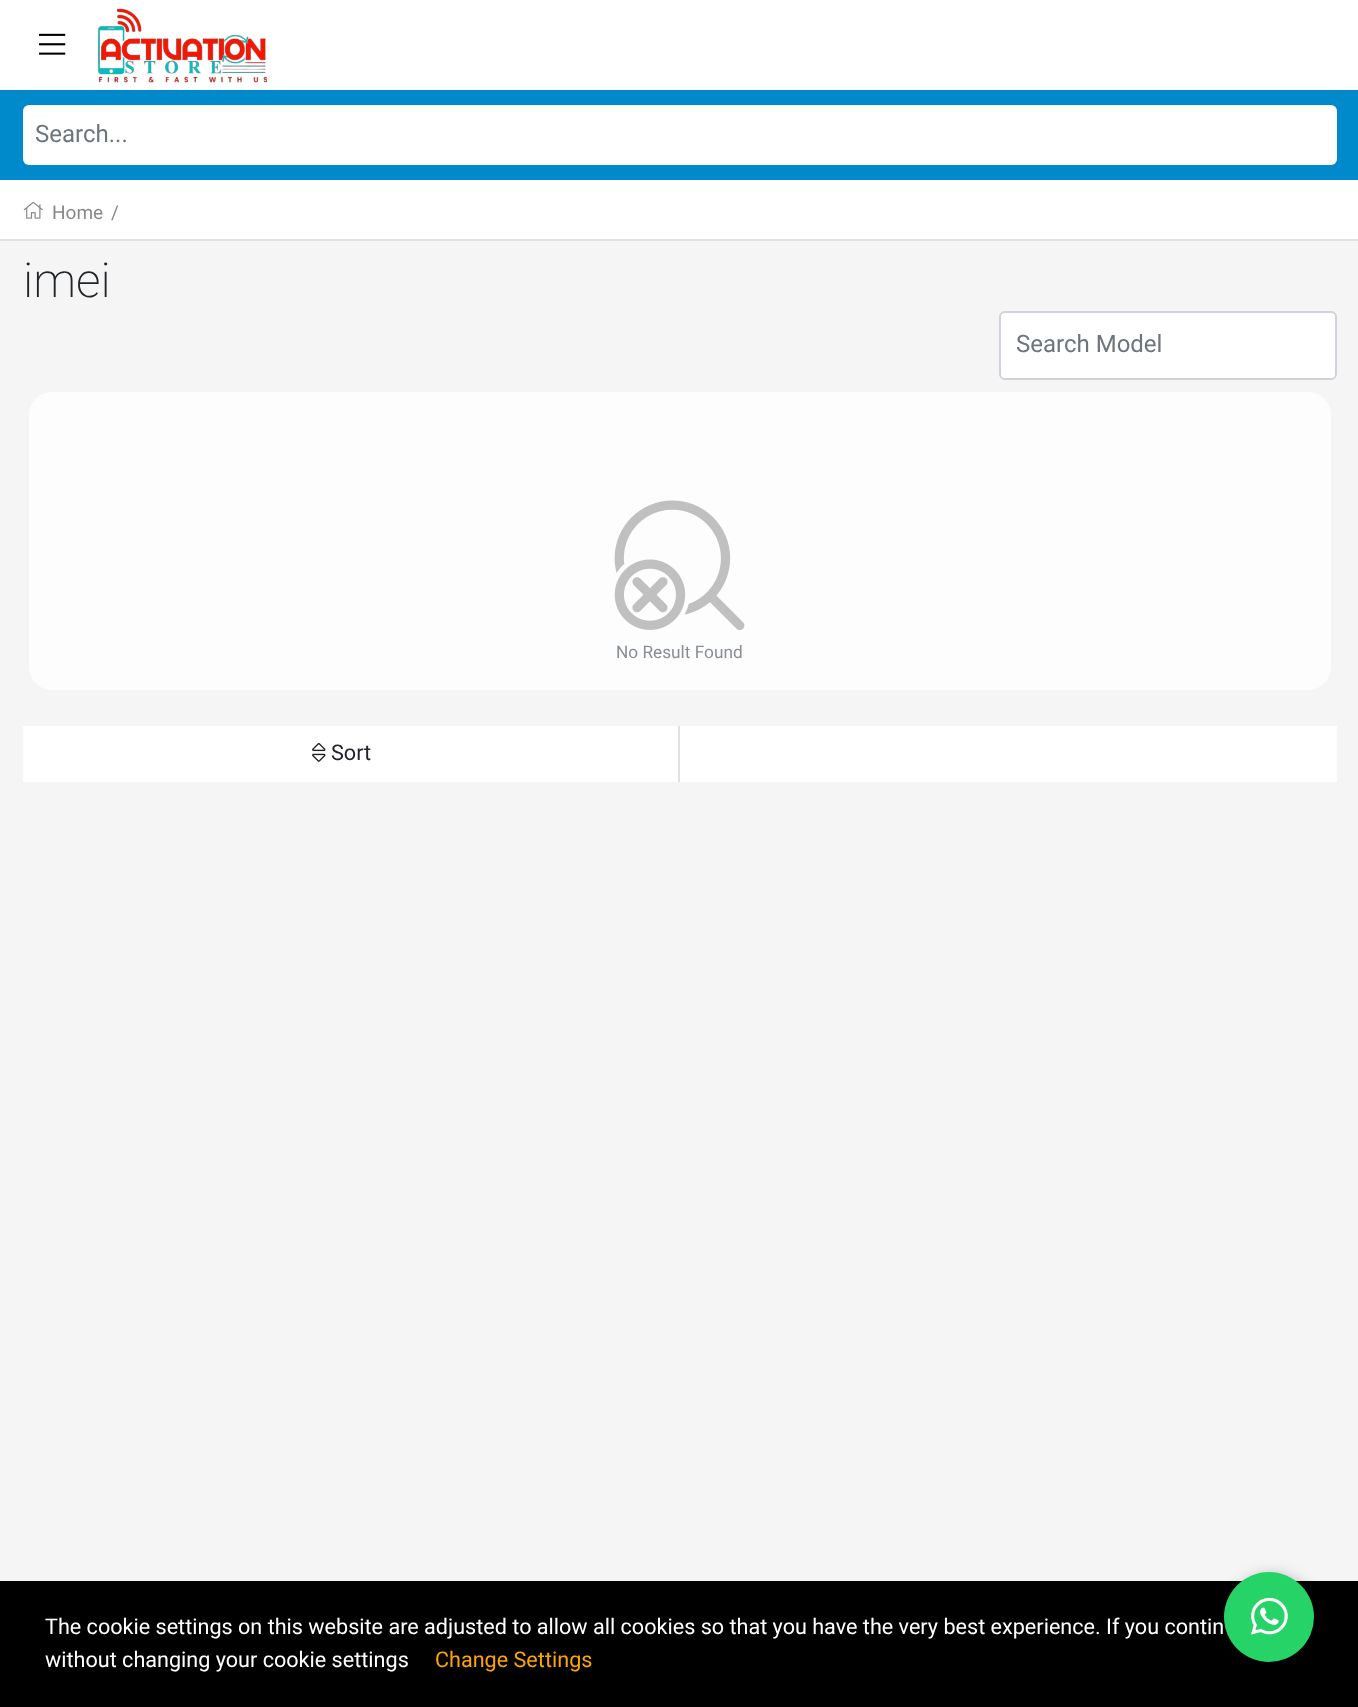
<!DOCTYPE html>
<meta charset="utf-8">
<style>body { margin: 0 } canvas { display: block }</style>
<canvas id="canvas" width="1358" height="1707"></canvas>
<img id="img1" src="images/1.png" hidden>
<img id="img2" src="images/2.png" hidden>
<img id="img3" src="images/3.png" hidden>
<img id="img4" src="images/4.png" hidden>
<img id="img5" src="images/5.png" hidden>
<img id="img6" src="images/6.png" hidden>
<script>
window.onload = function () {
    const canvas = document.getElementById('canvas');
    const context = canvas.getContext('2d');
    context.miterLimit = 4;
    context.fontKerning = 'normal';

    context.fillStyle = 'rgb(245, 245, 245)';
    context.fillRect(0, 0, 1358, 1707);
    context.fillStyle = 'rgb(255, 255, 255)';
    context.fillRect(0, 0, 1358, 90);
    context.drawImage(document.getElementById('img1'), 39, 33, 27, 22);
    context.drawImage(document.getElementById('img2'), 97, 8, 170, 75);
    context.fillStyle = 'rgb(0, 138, 204)';
    context.fillRect(0, 90, 1358, 90);
    context.fillStyle = 'rgb(255, 255, 255)';
    context.beginPath();
    context.roundRect(23, 105, 1314, 60, 6);
    context.fill();
    context.fillRect(0, 180, 1358, 59);
    context.fillStyle = 'rgb(222, 226, 230)';
    context.fillRect(0, 239, 1358, 2);
    context.drawImage(document.getElementById('img3'), 23, 202, 20, 17);
    context.fillStyle = 'rgb(255, 255, 255)';
    context.beginPath();
    context.roundRect(1000, 312, 336, 67, 5);
    context.fill();
    context.strokeStyle = 'rgb(206, 212, 218)';
    context.lineWidth = 2;
    context.stroke();
    context.fillStyle = 'rgb(253, 253, 253)';
    context.beginPath();
    context.roundRect(29, 392, 1302, 298, 23);
    context.fill();
    context.drawImage(document.getElementById('img4'), 614, 500, 131, 130);
    context.fillStyle = 'rgb(255, 255, 255)';
    context.fillRect(23, 726, 1314, 56);
    context.fillStyle = 'rgb(222, 226, 230)';
    context.fillRect(678, 726, 2, 56);
    context.drawImage(document.getElementById('img5'), 312, 743, 14, 19);
    context.fillStyle = 'rgb(0, 0, 0)';
    context.fillRect(0, 1581, 1358, 126);
    context.fillStyle = 'rgba(0, 0, 0, 0.25)';
    context.filter = 'blur(7.5px)';
    context.beginPath();
    context.roundRect(1227, 1575, 90, 90, 45);
    context.fill();
    context.filter = 'none';
    context.fillStyle = 'rgb(37, 211, 102)';
    context.beginPath();
    context.arc(1269, 1617, 45, 0, 2 * Math.PI);
    context.fill();
    context.drawImage(document.getElementById('img6'), 1251, 1597, 37, 38);
    context.font = '24px Roboto';
    context.fillStyle = 'rgb(108, 117, 125)';
    context.fillText('Search...', 35, 142);
    context.font = '19px Roboto';
    context.fillStyle = 'rgb(136, 136, 136)';
    context.fillText('Home', 52, 219);
    context.fillText('/', 111, 219);
    context.font = '200 48px Roboto';
    context.fillStyle = 'rgb(33, 37, 41)';
    context.fillText('imei', 23, 297);
    context.font = '24px Roboto';
    context.fillStyle = 'rgb(108, 117, 125)';
    context.fillText('Search Model', 1016, 352);
    context.font = '17.25px Roboto';
    context.fillStyle = 'rgb(135, 143, 149)';
    context.fillText('No Result Found', 616, 658);
    context.font = '21.6px Roboto';
    context.fillStyle = 'rgb(33, 37, 41)';
    context.fillText('Sort', 331, 760);
    context.fillStyle = 'rgb(255, 255, 255)';
    context.fillText('The cookie settings on this website are adjusted to allow all cookies so that you have the very best experience. If you contin', 45, 1634);
    context.fillText('without changing your cookie settings', 45, 1667);
    context.fillStyle = 'rgb(255, 165, 0)';
    context.fillText('Change Settings', 435, 1667);
};
</script>
